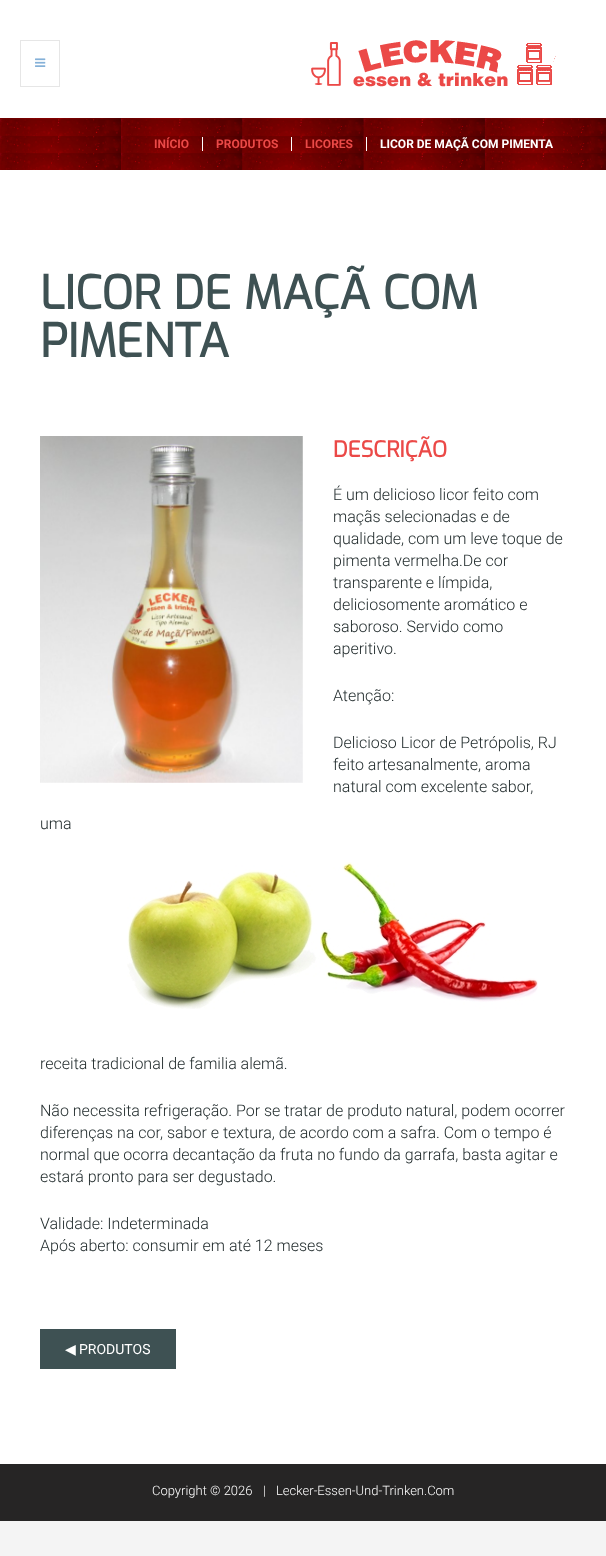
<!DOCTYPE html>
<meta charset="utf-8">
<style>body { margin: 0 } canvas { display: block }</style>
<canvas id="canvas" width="606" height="1556"></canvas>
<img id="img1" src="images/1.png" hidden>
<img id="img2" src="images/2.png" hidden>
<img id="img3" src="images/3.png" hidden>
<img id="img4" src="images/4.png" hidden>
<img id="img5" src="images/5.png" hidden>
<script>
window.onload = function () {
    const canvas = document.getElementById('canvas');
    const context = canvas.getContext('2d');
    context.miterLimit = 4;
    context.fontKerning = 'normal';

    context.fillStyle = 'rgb(244, 244, 244)';
    context.fillRect(0, 0, 606, 1556);
    context.fillStyle = 'rgb(255, 255, 255)';
    context.fillRect(0, 0, 606, 118);
    context.strokeStyle = 'rgb(230, 230, 230)';
    context.strokeRect(20.5, 40.5, 39, 46);
    context.drawImage(document.getElementById('img1'), 35, 58, 11, 9);
    context.drawImage(document.getElementById('img2'), 311, 40, 245, 47);
    context.drawImage(document.getElementById('img3'), 0, 118, 606, 52);
    context.fillRect(202, 137, 1, 14);
    context.fillRect(291, 137, 1, 14);
    context.fillRect(366, 137, 1, 14);
    context.fillRect(0, 170, 606, 1294);
    context.drawImage(document.getElementById('img4'), 127, 862, 411, 147);
    context.fillStyle = 'rgb(62, 81, 83)';
    context.fillRect(40, 1329, 136, 40);
    context.drawImage(document.getElementById('img5'), 40, 436, 263, 347);
    context.fillStyle = 'rgb(38, 37, 37)';
    context.fillRect(0, 1464, 606, 57);
    context.font = 'bold 12px Roboto';
    context.fillStyle = 'rgb(235, 73, 71)';
    context.fillText('INÍCIO', 154, 148);
    context.fillText('PRODUTOS', 216, 148);
    context.fillText('LICORES', 305, 148);
    context.fillStyle = 'rgb(255, 255, 255)';
    context.fillText('LICOR DE MAÇÃ COM PIMENTA', 380, 148);
    context.font = 'bold 46px Exo';
    context.fillStyle = 'rgb(62, 81, 83)';
    context.fillText('LICOR DE MAÇÃ COM', 40, 309);
    context.fillText('PIMENTA', 40, 357);
    context.font = 'bold 22px Exo';
    context.fillStyle = 'rgb(235, 73, 71)';
    context.fillText('DESCRIÇÃO', 333, 457);
    context.font = '300 16px Roboto';
    context.fillStyle = 'rgb(33, 43, 44)';
    context.fillText('É um delicioso licor feito com', 333, 500);
    context.fillText('maçãs selecionadas e de', 333, 522);
    context.fillText('qualidade, com um leve toque de', 333, 544);
    context.fillText('pimenta vermelha.De cor', 333, 566);
    context.fillText('transparente e límpida,', 333, 588);
    context.fillText('deliciosomente aromático e', 333, 610);
    context.fillText('saboroso. Servido como', 333, 632);
    context.fillText('aperitivo.', 333, 654);
    context.fillText('Atenção:', 333, 701);
    context.fillText('Delicioso Licor de Petrópolis, RJ', 333, 748);
    context.fillText('feito artesanalmente, aroma', 333, 770);
    context.fillText('natural com excelente sabor,', 333, 792);
    context.fillText('uma', 40, 829);
    context.fillText('receita tradicional de familia alemã.', 40, 1069);
    context.fillText('Não necessita refrigeração. Por se tratar de produto natural, podem ocorrer', 40, 1116);
    context.fillText('diferenças na cor, sabor e textura, de acordo com a safra. Com o tempo é', 40, 1138);
    context.fillText('normal que ocorra decantação da fruta no fundo da garrafa, basta agitar e', 40, 1160);
    context.fillText('estará pronto para ser degustado.', 40, 1182);
    context.fillText('Validade: Indeterminada', 40, 1229);
    context.fillText('Após aberto: consumir em até 12 meses', 40, 1251);
    context.font = '14px DejaVu Sans';
    context.fillStyle = 'rgb(255, 255, 255)';
    context.fillText('◀', 65, 1354);
    context.font = '14px Roboto';
    context.fillText('PRODUTOS', 79, 1354);
    context.font = '300 13px Roboto';
    context.fillText('Copyright © 2026', 152, 1495);
    context.fillText('|', 263, 1495);
    context.fillText('Lecker-Essen-Und-Trinken.Com', 276, 1495);
};
</script>
